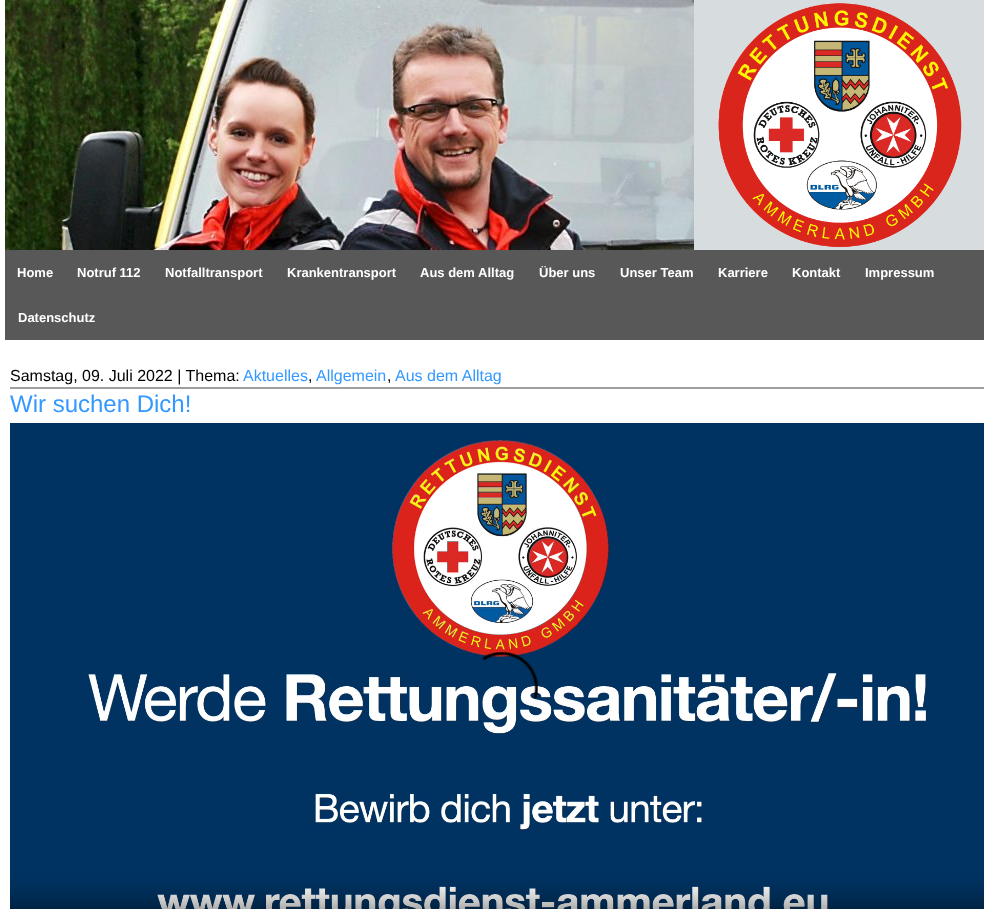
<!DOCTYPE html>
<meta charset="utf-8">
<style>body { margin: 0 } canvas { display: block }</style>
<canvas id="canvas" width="984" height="909"></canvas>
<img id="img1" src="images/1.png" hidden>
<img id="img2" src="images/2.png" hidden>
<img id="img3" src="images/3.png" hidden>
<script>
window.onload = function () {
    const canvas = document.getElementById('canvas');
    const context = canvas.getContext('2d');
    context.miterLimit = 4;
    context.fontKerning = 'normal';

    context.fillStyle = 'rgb(255, 255, 255)';
    context.fillRect(0, 0, 984, 909);
    context.drawImage(document.getElementById('img1'), 5, 0, 689, 250);
    context.fillStyle = 'rgb(215, 220, 223)';
    context.fillRect(694, 0, 290, 250);
    context.drawImage(document.getElementById('img2'), 718, 3, 244, 245);
    context.fillStyle = 'rgb(88, 88, 88)';
    context.fillRect(5, 250, 979, 90);
    context.fillStyle = 'rgb(159, 159, 159)';
    context.fillRect(10, 387, 974, 2);
    context.drawImage(document.getElementById('img3'), 10, 423, 974, 486);
    context.font = 'bold 13px Liberation Sans';
    context.fillStyle = 'rgb(255, 255, 255)';
    context.fillText('Home', 17, 277);
    context.fillText('Notruf 112', 77, 277);
    context.fillText('Notfalltransport', 165, 277);
    context.fillText('Krankentransport', 287, 277);
    context.fillText('Aus dem Alltag', 420, 277);
    context.fillText('Über uns', 539, 277);
    context.fillText('Unser Team', 620, 277);
    context.fillText('Karriere', 718, 277);
    context.fillText('Kontakt', 792, 277);
    context.fillText('Impressum', 865, 277);
    context.fillText('Datenschutz', 18, 322);
    context.font = '16px Liberation Sans';
    context.fillStyle = 'rgb(0, 0, 0)';
    context.fillText('Samstag, 09. Juli 2022 | Thema:', 10, 381);
    context.fillStyle = 'rgb(51, 153, 255)';
    context.fillText('Aktuelles', 243, 381);
    context.fillStyle = 'rgb(0, 0, 0)';
    context.fillText(',', 308, 381);
    context.fillStyle = 'rgb(51, 153, 255)';
    context.fillText('Allgemein', 316, 381);
    context.fillStyle = 'rgb(0, 0, 0)';
    context.fillText(',', 387, 381);
    context.fillStyle = 'rgb(51, 153, 255)';
    context.fillText('Aus dem Alltag', 395, 381);
    context.font = '24px Liberation Sans';
    context.fillText('Wir suchen Dich!', 10, 412);
};
</script>
